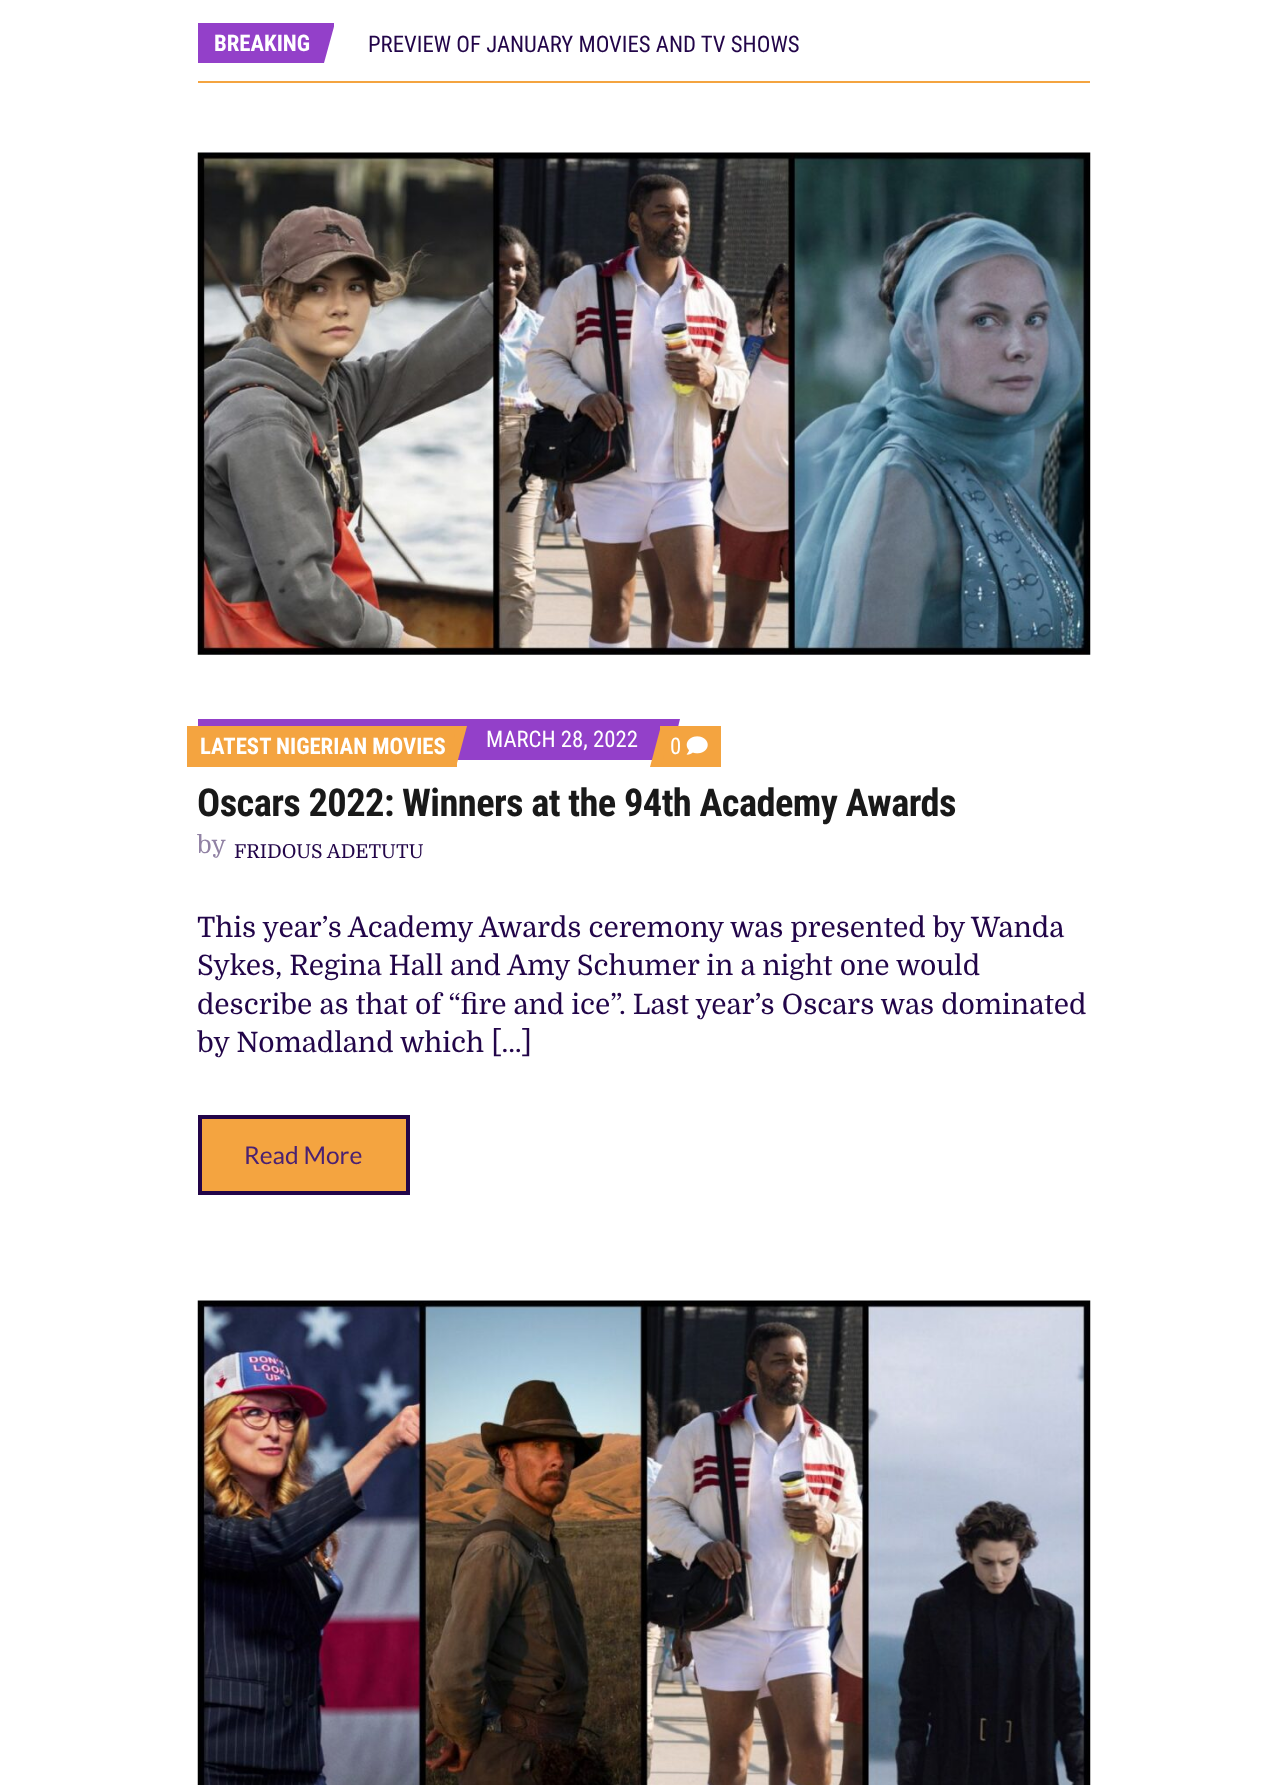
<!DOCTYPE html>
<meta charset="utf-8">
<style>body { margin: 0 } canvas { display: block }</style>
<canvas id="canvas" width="1285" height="1785"></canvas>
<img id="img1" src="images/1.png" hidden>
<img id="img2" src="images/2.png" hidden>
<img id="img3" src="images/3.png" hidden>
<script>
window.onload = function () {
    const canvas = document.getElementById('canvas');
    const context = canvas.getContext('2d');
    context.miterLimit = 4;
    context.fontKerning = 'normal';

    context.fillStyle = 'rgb(255, 255, 255)';
    context.fillRect(0, 0, 1285, 1785);
    context.fillStyle = 'rgb(244, 164, 64)';
    context.fillRect(198, 81, 892, 2);
    context.fillStyle = 'rgb(147, 64, 201)';
    context.fillRect(198, 23, 136, 40);
    context.fillStyle = 'rgb(255, 255, 255)';
    context.beginPath();
    context.moveTo(335, 23);
    context.lineTo(346, 23);
    context.lineTo(335, 63);
    context.lineTo(324, 63);
    context.closePath();
    context.fill();
    context.drawImage(document.getElementById('img1'), 197, 152, 894, 503);
    context.fillStyle = 'rgb(147, 64, 201)';
    context.fillRect(198, 719, 472, 41);
    context.fillStyle = 'rgb(244, 164, 64)';
    context.fillRect(187, 726, 270, 41);
    context.beginPath();
    context.moveTo(457, 726);
    context.lineTo(467, 726);
    context.lineTo(456, 767);
    context.lineTo(446, 767);
    context.closePath();
    context.fill();
    context.fillStyle = 'rgb(147, 64, 201)';
    context.beginPath();
    context.moveTo(670, 719);
    context.lineTo(680, 719);
    context.lineTo(670, 760);
    context.lineTo(659, 760);
    context.closePath();
    context.fill();
    context.fillStyle = 'rgb(244, 164, 64)';
    context.fillRect(660, 726, 61, 41);
    context.drawImage(document.getElementById('img2'), 686, 736, 22, 19);
    context.beginPath();
    context.rect(200, 1117, 208, 76);
    context.fill();
    context.strokeStyle = 'rgb(34, 5, 73)';
    context.lineWidth = 4;
    context.stroke();
    context.drawImage(document.getElementById('img3'), 197, 1300, 894, 485);
    context.font = 'bold 22.75px Roboto Condensed';
    context.fillStyle = 'rgb(255, 255, 255)';
    context.fillText('BREAKING', 214, 51);
    context.font = '22.75px Roboto Condensed';
    context.fillStyle = 'rgb(34, 5, 73)';
    context.fillText('PREVIEW OF JANUARY MOVIES AND TV SHOWS', 368, 52);
    context.font = 'bold 22.75px Roboto Condensed';
    context.fillStyle = 'rgb(255, 255, 255)';
    context.fillText('LATEST NIGERIAN MOVIES', 200, 754);
    context.font = '22.75px Roboto Condensed';
    context.fillText('MARCH 28, 2022', 486, 747);
    context.fillText('0', 670, 754);
    context.fillStyle = 'rgb(244, 164, 64)';
    context.beginPath();
    context.moveTo(661, 726);
    context.lineTo(672, 726);
    context.lineTo(661, 767);
    context.lineTo(650, 767);
    context.closePath();
    context.fill();
    context.letterSpacing = '-0.6px';
    context.font = 'bold 38.5px Roboto Condensed';
    context.fillStyle = 'rgb(25, 25, 25)';
    context.fillText('Oscars 2022: Winners at the 94th Academy Awards', 197, 816);
    context.letterSpacing = '0px';
    context.font = '24.5px Domine';
    context.fillStyle = 'rgb(145, 130, 164)';
    context.fillText('by', 197, 853);
    context.font = '19.25px Domine';
    context.fillStyle = 'rgb(34, 5, 73)';
    context.fillText('FRIDOUS ADETUTU', 234, 858);
    context.font = '28px Domine';
    context.fillText('This year’s Academy Awards ceremony was presented by Wanda', 197, 937);
    context.fillText('Sykes, Regina Hall and Amy Schumer in a night one would', 197, 975);
    context.fillText('describe as that of “fire and ice”. Last year’s Oscars was dominated', 197, 1014);
    context.fillText('by Nomadland which […]', 197, 1052);
    context.font = '24.5px Lato';
    context.fillStyle = 'rgb(74, 33, 114)';
    context.fillText('Read More', 244, 1164);
};
</script>
